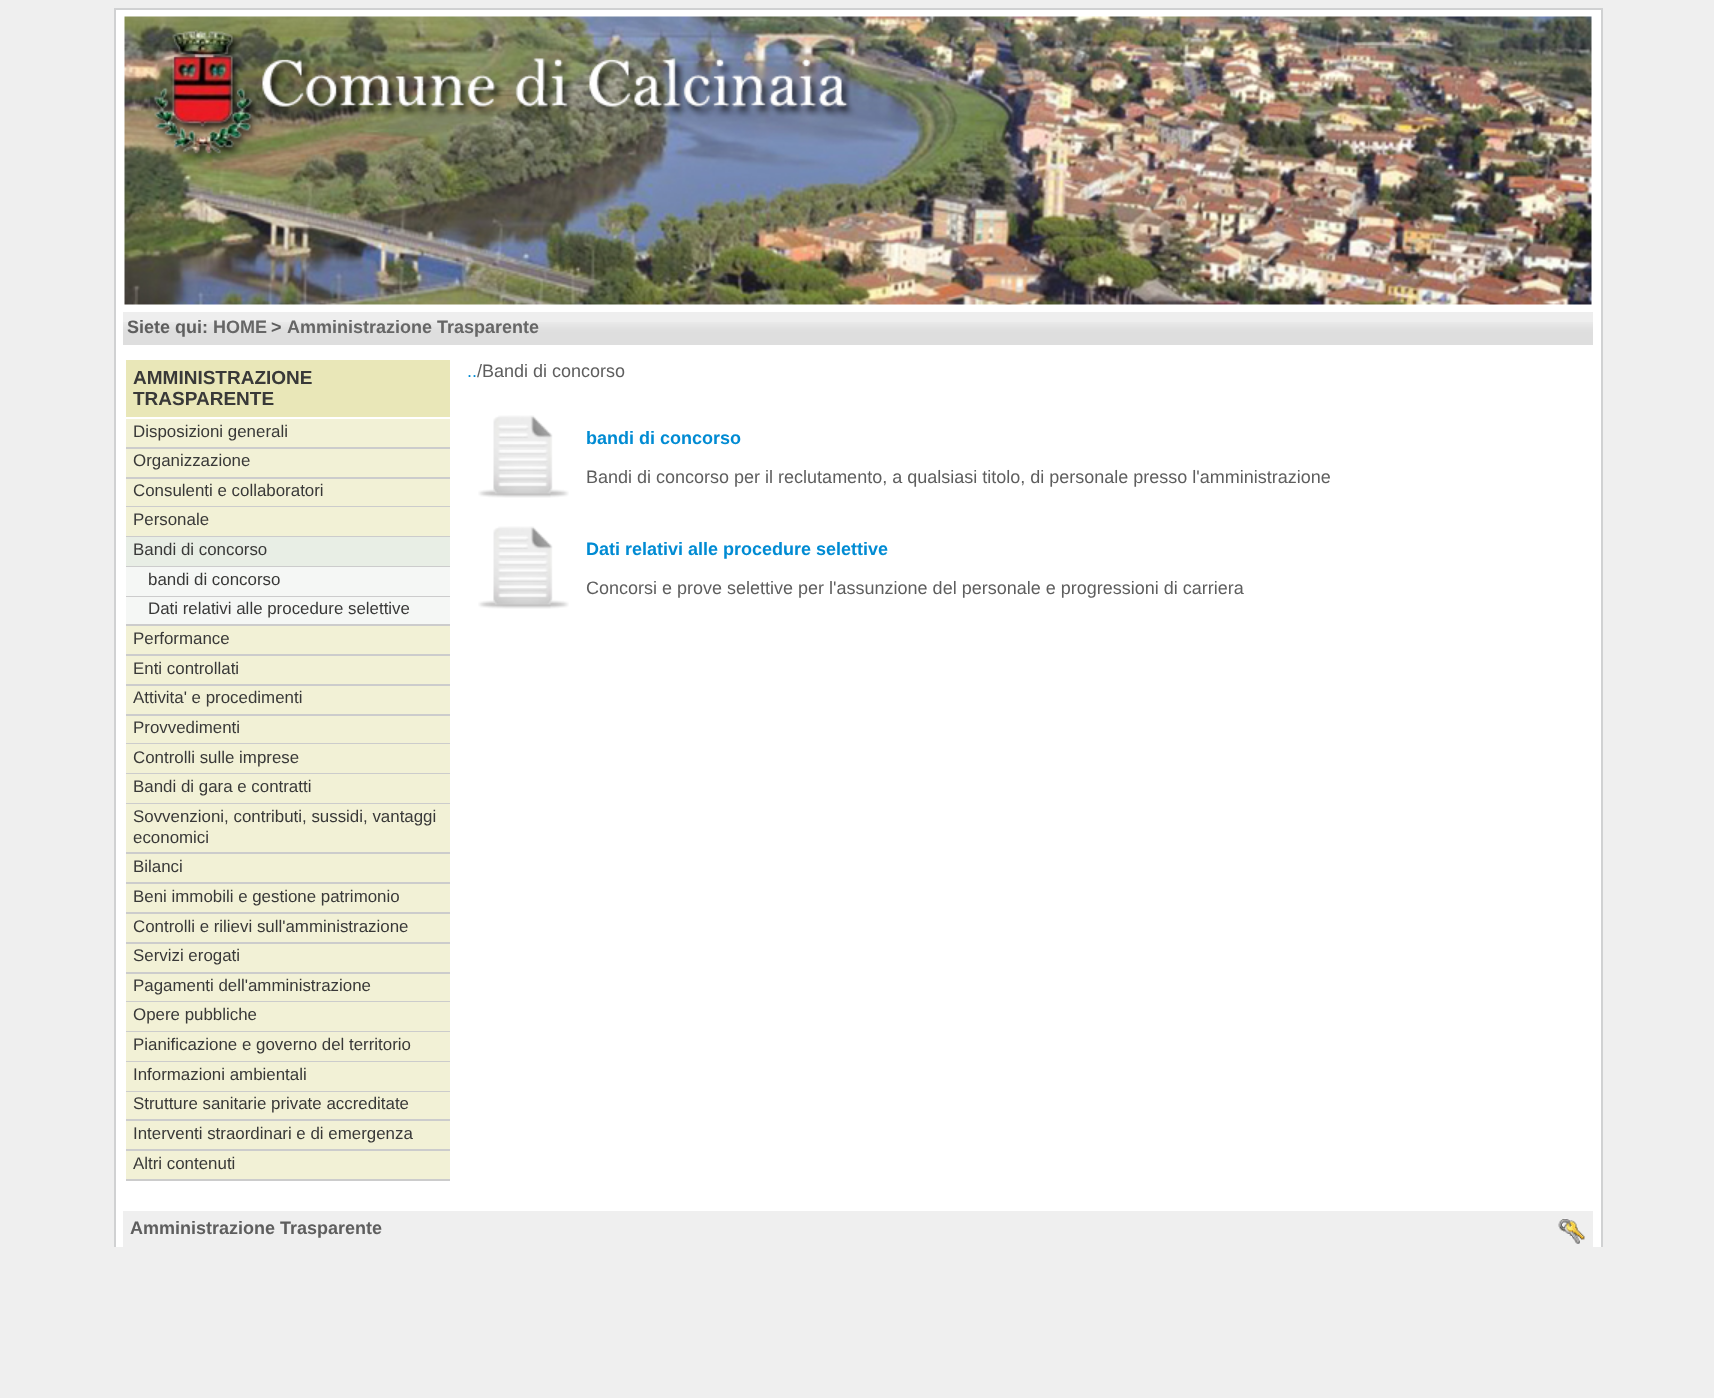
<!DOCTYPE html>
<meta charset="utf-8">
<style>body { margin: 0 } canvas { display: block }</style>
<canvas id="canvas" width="1714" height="1398"></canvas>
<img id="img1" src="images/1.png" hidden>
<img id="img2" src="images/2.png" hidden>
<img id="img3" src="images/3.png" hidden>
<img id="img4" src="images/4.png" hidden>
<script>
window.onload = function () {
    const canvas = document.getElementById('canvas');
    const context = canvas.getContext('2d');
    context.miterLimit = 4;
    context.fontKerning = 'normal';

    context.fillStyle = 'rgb(239, 239, 239)';
    context.fillRect(0, 0, 1714, 1398);
    context.fillStyle = 'rgb(255, 255, 255)';
    context.fillRect(116, 10, 1485, 1237);
    context.fillStyle = 'rgb(208, 209, 210)';
    context.fillRect(114, 8, 1488, 2);
    context.fillRect(1601, 8, 2, 1239);
    context.fillRect(114, 8, 2, 1239);
    context.drawImage(document.getElementById('img1'), 124, 16, 1468, 289);
    context.fillStyle = 'rgb(238, 238, 238)';
    context.fillRect(123, 312, 1470, 10);
    context.drawImage(document.getElementById('img2'), 123, 322, 1470, 23);
    context.fillStyle = 'rgb(233, 231, 184)';
    context.fillRect(126, 360, 324, 57);
    context.fillStyle = 'rgb(242, 241, 214)';
    context.fillRect(126, 419, 324, 28);
    context.fillStyle = 'rgb(204, 204, 204)';
    context.fillRect(126, 447, 324, 2);
    context.fillStyle = 'rgb(242, 241, 214)';
    context.fillRect(126, 449, 324, 28);
    context.fillStyle = 'rgb(204, 204, 204)';
    context.fillRect(126, 477, 324, 2);
    context.fillStyle = 'rgb(242, 241, 214)';
    context.fillRect(126, 479, 324, 27);
    context.fillStyle = 'rgb(204, 204, 204)';
    context.fillRect(126, 506, 324, 1);
    context.fillStyle = 'rgb(242, 241, 214)';
    context.fillRect(126, 507, 324, 29);
    context.fillStyle = 'rgb(204, 204, 204)';
    context.fillRect(126, 536, 324, 1);
    context.fillStyle = 'rgb(232, 238, 229)';
    context.fillRect(126, 537, 324, 29);
    context.fillStyle = 'rgb(204, 204, 204)';
    context.fillRect(126, 566, 324, 1);
    context.fillStyle = 'rgb(245, 247, 245)';
    context.fillRect(126, 567, 324, 29);
    context.fillStyle = 'rgb(204, 204, 204)';
    context.fillRect(126, 596, 324, 1);
    context.fillStyle = 'rgb(245, 247, 245)';
    context.fillRect(126, 597, 324, 27);
    context.fillStyle = 'rgb(204, 204, 204)';
    context.fillRect(126, 624, 324, 2);
    context.fillStyle = 'rgb(242, 241, 214)';
    context.fillRect(126, 626, 324, 28);
    context.fillStyle = 'rgb(204, 204, 204)';
    context.fillRect(126, 654, 324, 2);
    context.fillStyle = 'rgb(242, 241, 214)';
    context.fillRect(126, 656, 324, 28);
    context.fillStyle = 'rgb(204, 204, 204)';
    context.fillRect(126, 684, 324, 2);
    context.fillStyle = 'rgb(242, 241, 214)';
    context.fillRect(126, 686, 324, 28);
    context.fillStyle = 'rgb(204, 204, 204)';
    context.fillRect(126, 714, 324, 2);
    context.fillStyle = 'rgb(242, 241, 214)';
    context.fillRect(126, 716, 324, 27);
    context.fillStyle = 'rgb(204, 204, 204)';
    context.fillRect(126, 743, 324, 1);
    context.fillStyle = 'rgb(242, 241, 214)';
    context.fillRect(126, 744, 324, 29);
    context.fillStyle = 'rgb(204, 204, 204)';
    context.fillRect(126, 773, 324, 1);
    context.fillStyle = 'rgb(242, 241, 214)';
    context.fillRect(126, 774, 324, 29);
    context.fillStyle = 'rgb(204, 204, 204)';
    context.fillRect(126, 803, 324, 1);
    context.fillStyle = 'rgb(242, 241, 214)';
    context.fillRect(126, 804, 324, 48);
    context.fillStyle = 'rgb(204, 204, 204)';
    context.fillRect(126, 852, 324, 2);
    context.fillStyle = 'rgb(242, 241, 214)';
    context.fillRect(126, 854, 324, 28);
    context.fillStyle = 'rgb(204, 204, 204)';
    context.fillRect(126, 882, 324, 2);
    context.fillStyle = 'rgb(242, 241, 214)';
    context.fillRect(126, 884, 324, 28);
    context.fillStyle = 'rgb(204, 204, 204)';
    context.fillRect(126, 912, 324, 2);
    context.fillStyle = 'rgb(242, 241, 214)';
    context.fillRect(126, 914, 324, 28);
    context.fillStyle = 'rgb(204, 204, 204)';
    context.fillRect(126, 942, 324, 2);
    context.fillStyle = 'rgb(242, 241, 214)';
    context.fillRect(126, 944, 324, 28);
    context.fillStyle = 'rgb(204, 204, 204)';
    context.fillRect(126, 972, 324, 2);
    context.fillStyle = 'rgb(242, 241, 214)';
    context.fillRect(126, 974, 324, 27);
    context.fillStyle = 'rgb(204, 204, 204)';
    context.fillRect(126, 1001, 324, 1);
    context.fillStyle = 'rgb(242, 241, 214)';
    context.fillRect(126, 1002, 324, 29);
    context.fillStyle = 'rgb(204, 204, 204)';
    context.fillRect(126, 1031, 324, 1);
    context.fillStyle = 'rgb(242, 241, 214)';
    context.fillRect(126, 1032, 324, 29);
    context.fillStyle = 'rgb(204, 204, 204)';
    context.fillRect(126, 1061, 324, 1);
    context.fillStyle = 'rgb(242, 241, 214)';
    context.fillRect(126, 1062, 324, 29);
    context.fillStyle = 'rgb(204, 204, 204)';
    context.fillRect(126, 1091, 324, 1);
    context.fillStyle = 'rgb(242, 241, 214)';
    context.fillRect(126, 1092, 324, 27);
    context.fillStyle = 'rgb(204, 204, 204)';
    context.fillRect(126, 1119, 324, 2);
    context.fillStyle = 'rgb(242, 241, 214)';
    context.fillRect(126, 1121, 324, 28);
    context.fillStyle = 'rgb(204, 204, 204)';
    context.fillRect(126, 1149, 324, 2);
    context.fillStyle = 'rgb(242, 241, 214)';
    context.fillRect(126, 1151, 324, 28);
    context.fillStyle = 'rgb(204, 204, 204)';
    context.fillRect(126, 1179, 324, 2);
    context.drawImage(document.getElementById('img3'), 478, 415, 91, 83);
    context.drawImage(document.getElementById('img3'), 478, 526, 91, 83);
    context.fillStyle = 'rgb(239, 239, 239)';
    context.fillRect(123, 1211, 1470, 36);
    context.drawImage(document.getElementById('img4'), 1558, 1218, 27, 26);
    context.font = 'bold 18px Liberation Sans';
    context.fillStyle = 'rgb(94, 94, 94)';
    context.fillText('Siete qui:', 127, 333);
    context.fillStyle = 'rgb(102, 102, 102)';
    context.fillText('HOME', 213, 333);
    context.fillStyle = 'rgb(94, 94, 94)';
    context.fillText('>', 271, 333);
    context.fillStyle = 'rgb(102, 102, 102)';
    context.fillText('Amministrazione Trasparente', 287, 333);
    context.font = 'bold 19px Liberation Sans';
    context.fillStyle = 'rgb(57, 57, 56)';
    context.fillText('AMMINISTRAZIONE', 133, 384);
    context.fillText('TRASPARENTE', 133, 405);
    context.font = '16.9px Liberation Sans';
    context.fillText('Disposizioni generali', 133, 437);
    context.fillText('Organizzazione', 133, 466);
    context.fillText('Consulenti e collaboratori', 133, 496);
    context.fillText('Personale', 133, 525);
    context.fillText('Bandi di concorso', 133, 555);
    context.fillText('bandi di concorso', 148, 585);
    context.fillText('Dati relativi alle procedure selettive', 148, 614);
    context.fillText('Performance', 133, 644);
    context.fillText('Enti controllati', 133, 674);
    context.fillText('Attivita\' e procedimenti', 133, 703);
    context.fillText('Provvedimenti', 133, 733);
    context.fillText('Controlli sulle imprese', 133, 763);
    context.fillText('Bandi di gara e contratti', 133, 792);
    context.fillText('Sovvenzioni, contributi, sussidi, vantaggi', 133, 822);
    context.fillText('economici', 133, 843);
    context.fillText('Bilanci', 133, 872);
    context.fillText('Beni immobili e gestione patrimonio', 133, 902);
    context.fillText('Controlli e rilievi sull\'amministrazione', 133, 932);
    context.fillText('Servizi erogati', 133, 961);
    context.fillText('Pagamenti dell\'amministrazione', 133, 991);
    context.fillText('Opere pubbliche', 133, 1020);
    context.fillText('Pianificazione e governo del territorio', 133, 1050);
    context.fillText('Informazioni ambientali', 133, 1080);
    context.fillText('Strutture sanitarie private accreditate', 133, 1109);
    context.fillText('Interventi straordinari e di emergenza', 133, 1139);
    context.fillText('Altri contenuti', 133, 1169);
    context.font = '18px Liberation Sans';
    context.fillStyle = 'rgb(0, 139, 211)';
    context.fillText('..', 467, 377);
    context.fillStyle = 'rgb(94, 94, 94)';
    context.fillText('/Bandi di concorso', 477, 377);
    context.font = 'bold 18px Liberation Sans';
    context.fillStyle = 'rgb(0, 139, 211)';
    context.fillText('bandi di concorso', 586, 444);
    context.font = '18px Liberation Sans';
    context.fillStyle = 'rgb(94, 94, 94)';
    context.fillText('Bandi di concorso per il reclutamento, a qualsiasi titolo, di personale presso l\'amministrazione', 586, 483);
    context.font = 'bold 18px Liberation Sans';
    context.fillStyle = 'rgb(0, 139, 211)';
    context.fillText('Dati relativi alle procedure selettive', 586, 555);
    context.font = '18px Liberation Sans';
    context.fillStyle = 'rgb(94, 94, 94)';
    context.fillText('Concorsi e prove selettive per l\'assunzione del personale e progressioni di carriera', 586, 594);
    context.font = 'bold 18px Liberation Sans';
    context.fillText('Amministrazione Trasparente', 130, 1234);
};
</script>
